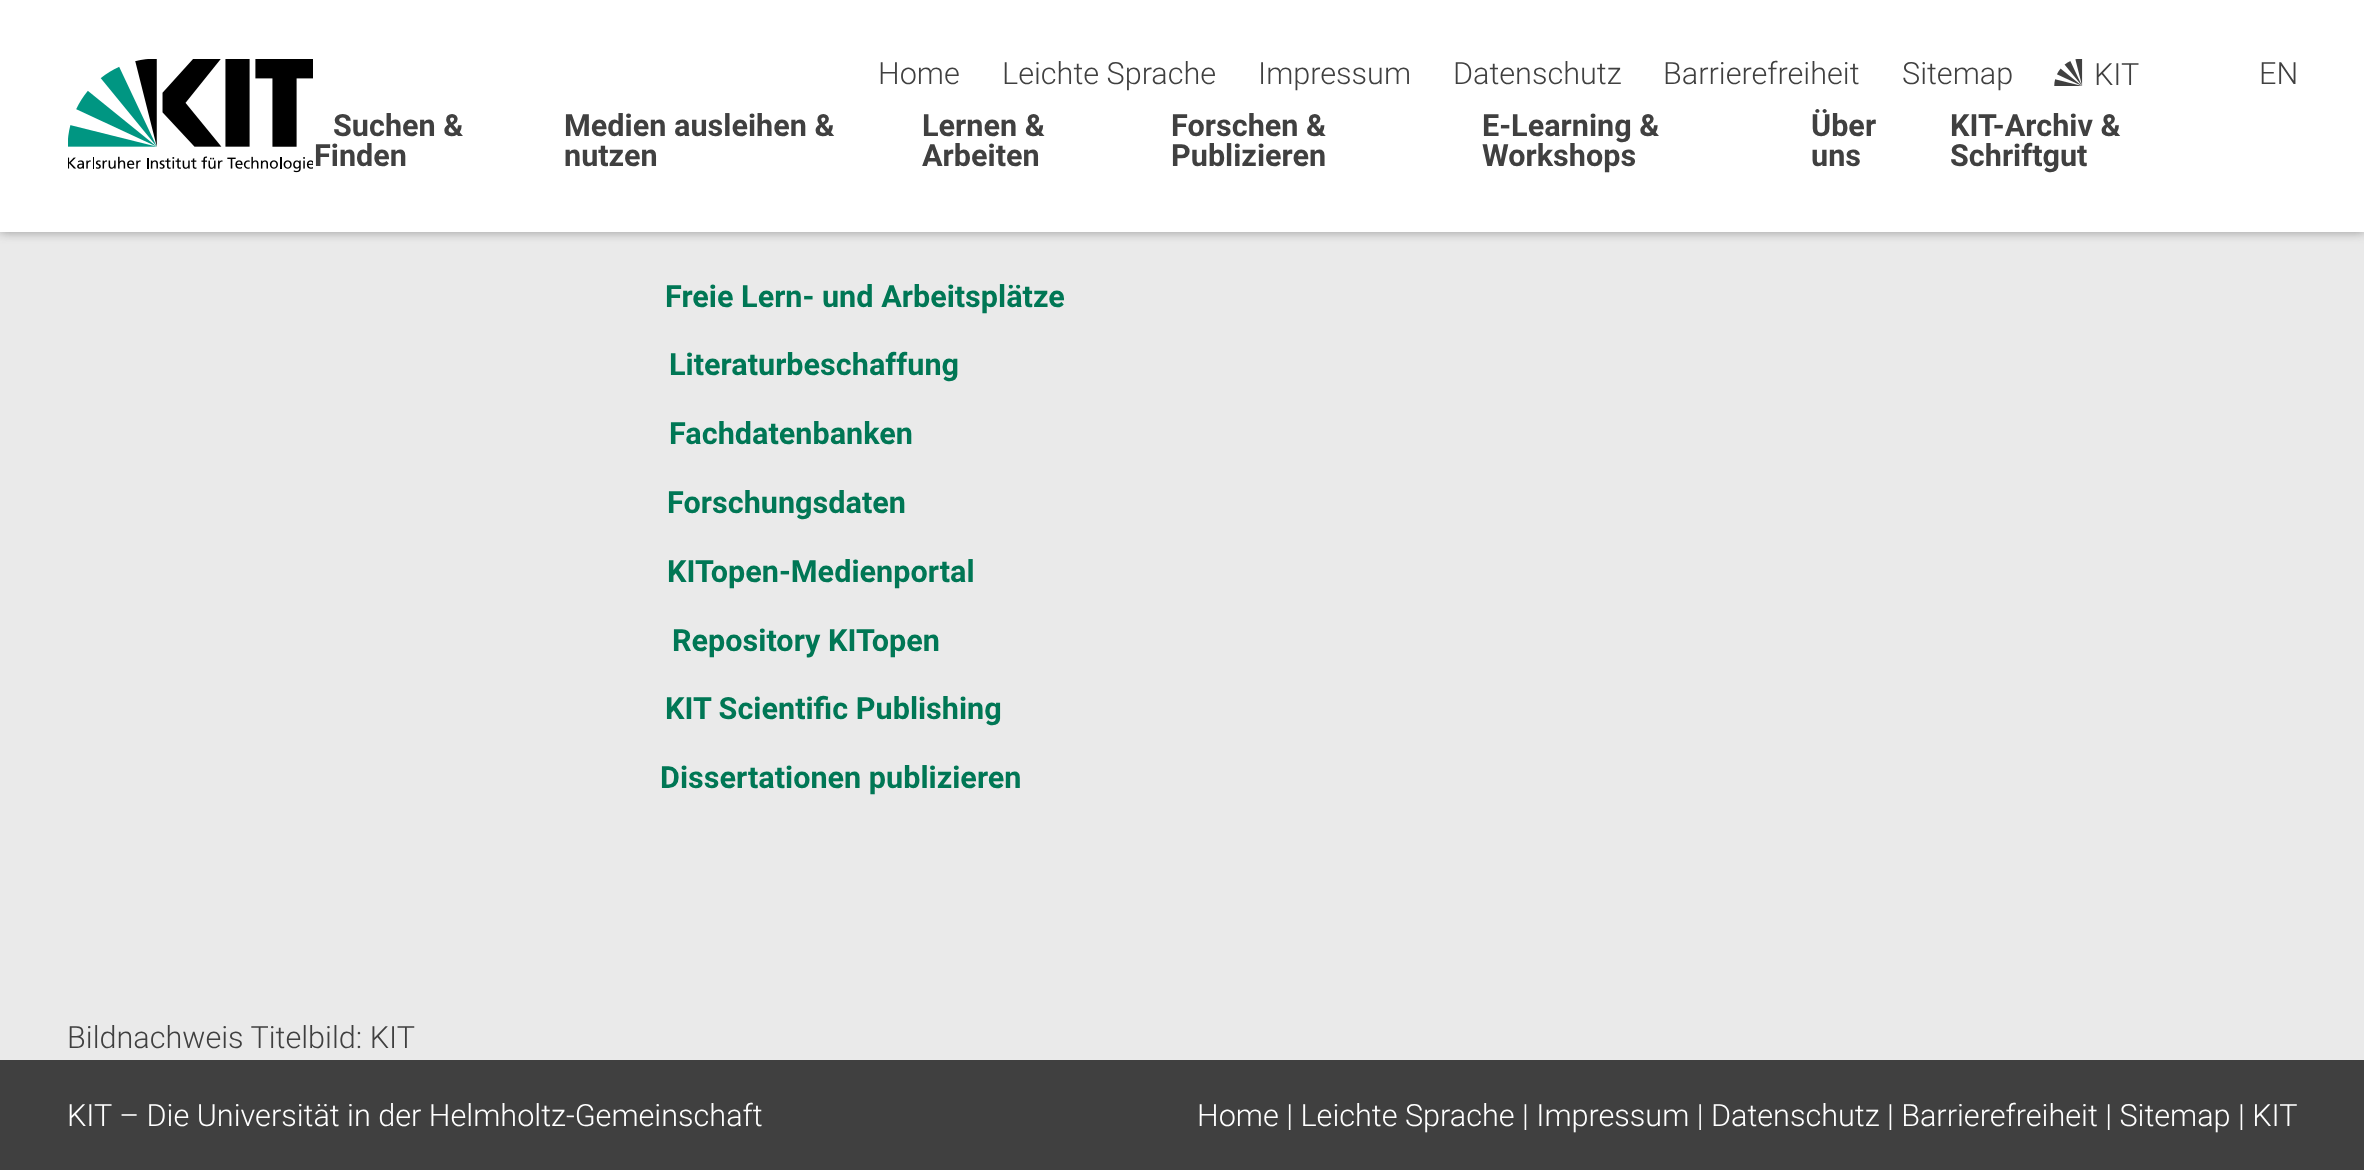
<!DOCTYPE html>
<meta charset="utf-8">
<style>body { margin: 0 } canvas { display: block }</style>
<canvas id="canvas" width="2364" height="1170"></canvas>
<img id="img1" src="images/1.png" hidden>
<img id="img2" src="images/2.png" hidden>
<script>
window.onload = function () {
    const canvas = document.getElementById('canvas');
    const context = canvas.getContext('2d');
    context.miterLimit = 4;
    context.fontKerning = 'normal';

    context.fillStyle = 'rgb(234, 234, 234)';
    context.fillRect(0, 0, 2364, 1170);
    context.fillStyle = 'rgba(64, 64, 64, 0.5)';
    context.filter = 'blur(5.5px)';
    context.beginPath();
    context.rect(0, 0, 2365, 232);
    context.fill();
    context.filter = 'none';
    context.fillStyle = 'rgb(255, 255, 255)';
    context.fillRect(0, 0, 2364, 232);
    context.drawImage(document.getElementById('img1'), 68, 59, 245, 114);
    context.drawImage(document.getElementById('img2'), 2054, 59, 29, 27);
    context.fillStyle = 'rgb(64, 64, 64)';
    context.fillRect(0, 1060, 2364, 110);
    context.font = '300 30.6px Roboto';
    context.fillText('Home', 878, 84);
    context.fillText('Leichte Sprache', 1002, 84);
    context.fillText('Impressum', 1258, 84);
    context.fillText('Datenschutz', 1453, 84);
    context.fillText('Barrierefreiheit', 1663, 84);
    context.fillText('Sitemap', 1902, 84);
    context.fillText('KIT', 2094, 85);
    context.fillText('EN', 2259, 84);
    context.font = 'bold 30.6px Roboto';
    context.fillText('Suchen &', 333, 136);
    context.fillText('Finden', 314, 166);
    context.fillText('Medien ausleihen &', 564, 136);
    context.fillText('nutzen', 564, 166);
    context.fillText('Lernen &', 922, 136);
    context.fillText('Arbeiten', 922, 166);
    context.fillText('Forschen &', 1171, 136);
    context.fillText('Publizieren', 1171, 166);
    context.fillText('E-Learning &', 1482, 136);
    context.fillText('Workshops', 1482, 166);
    context.fillText('Über', 1811, 136);
    context.fillText('uns', 1811, 166);
    context.fillText('KIT-Archiv &', 1950, 136);
    context.fillText('Schriftgut', 1950, 166);
    context.fillStyle = 'rgb(0, 119, 85)';
    context.fillText('Freie Lern- und Arbeitsplätze', 665, 307);
    context.fillText('Literaturbeschaffung', 669, 375);
    context.fillText('Fachdatenbanken', 669, 444);
    context.fillText('Forschungsdaten', 667, 513);
    context.fillText('KITopen-Medienportal', 667, 582);
    context.fillText('Repository KITopen', 672, 651);
    context.fillText('KIT Scientific Publishing', 665, 719);
    context.fillText('Dissertationen publizieren', 660, 788);
    context.font = '300 30.6px Roboto';
    context.fillStyle = 'rgb(64, 64, 64)';
    context.fillText('Bildnachweis Titelbild: KIT', 67, 1048);
    context.fillStyle = 'rgb(255, 255, 255)';
    context.fillText('KIT – Die Universität in der Helmholtz-Gemeinschaft', 67, 1126);
    context.fillText('Home | Leichte Sprache | Impressum | Datenschutz | Barrierefreiheit | Sitemap | KIT', 1197, 1126);
};
</script>
